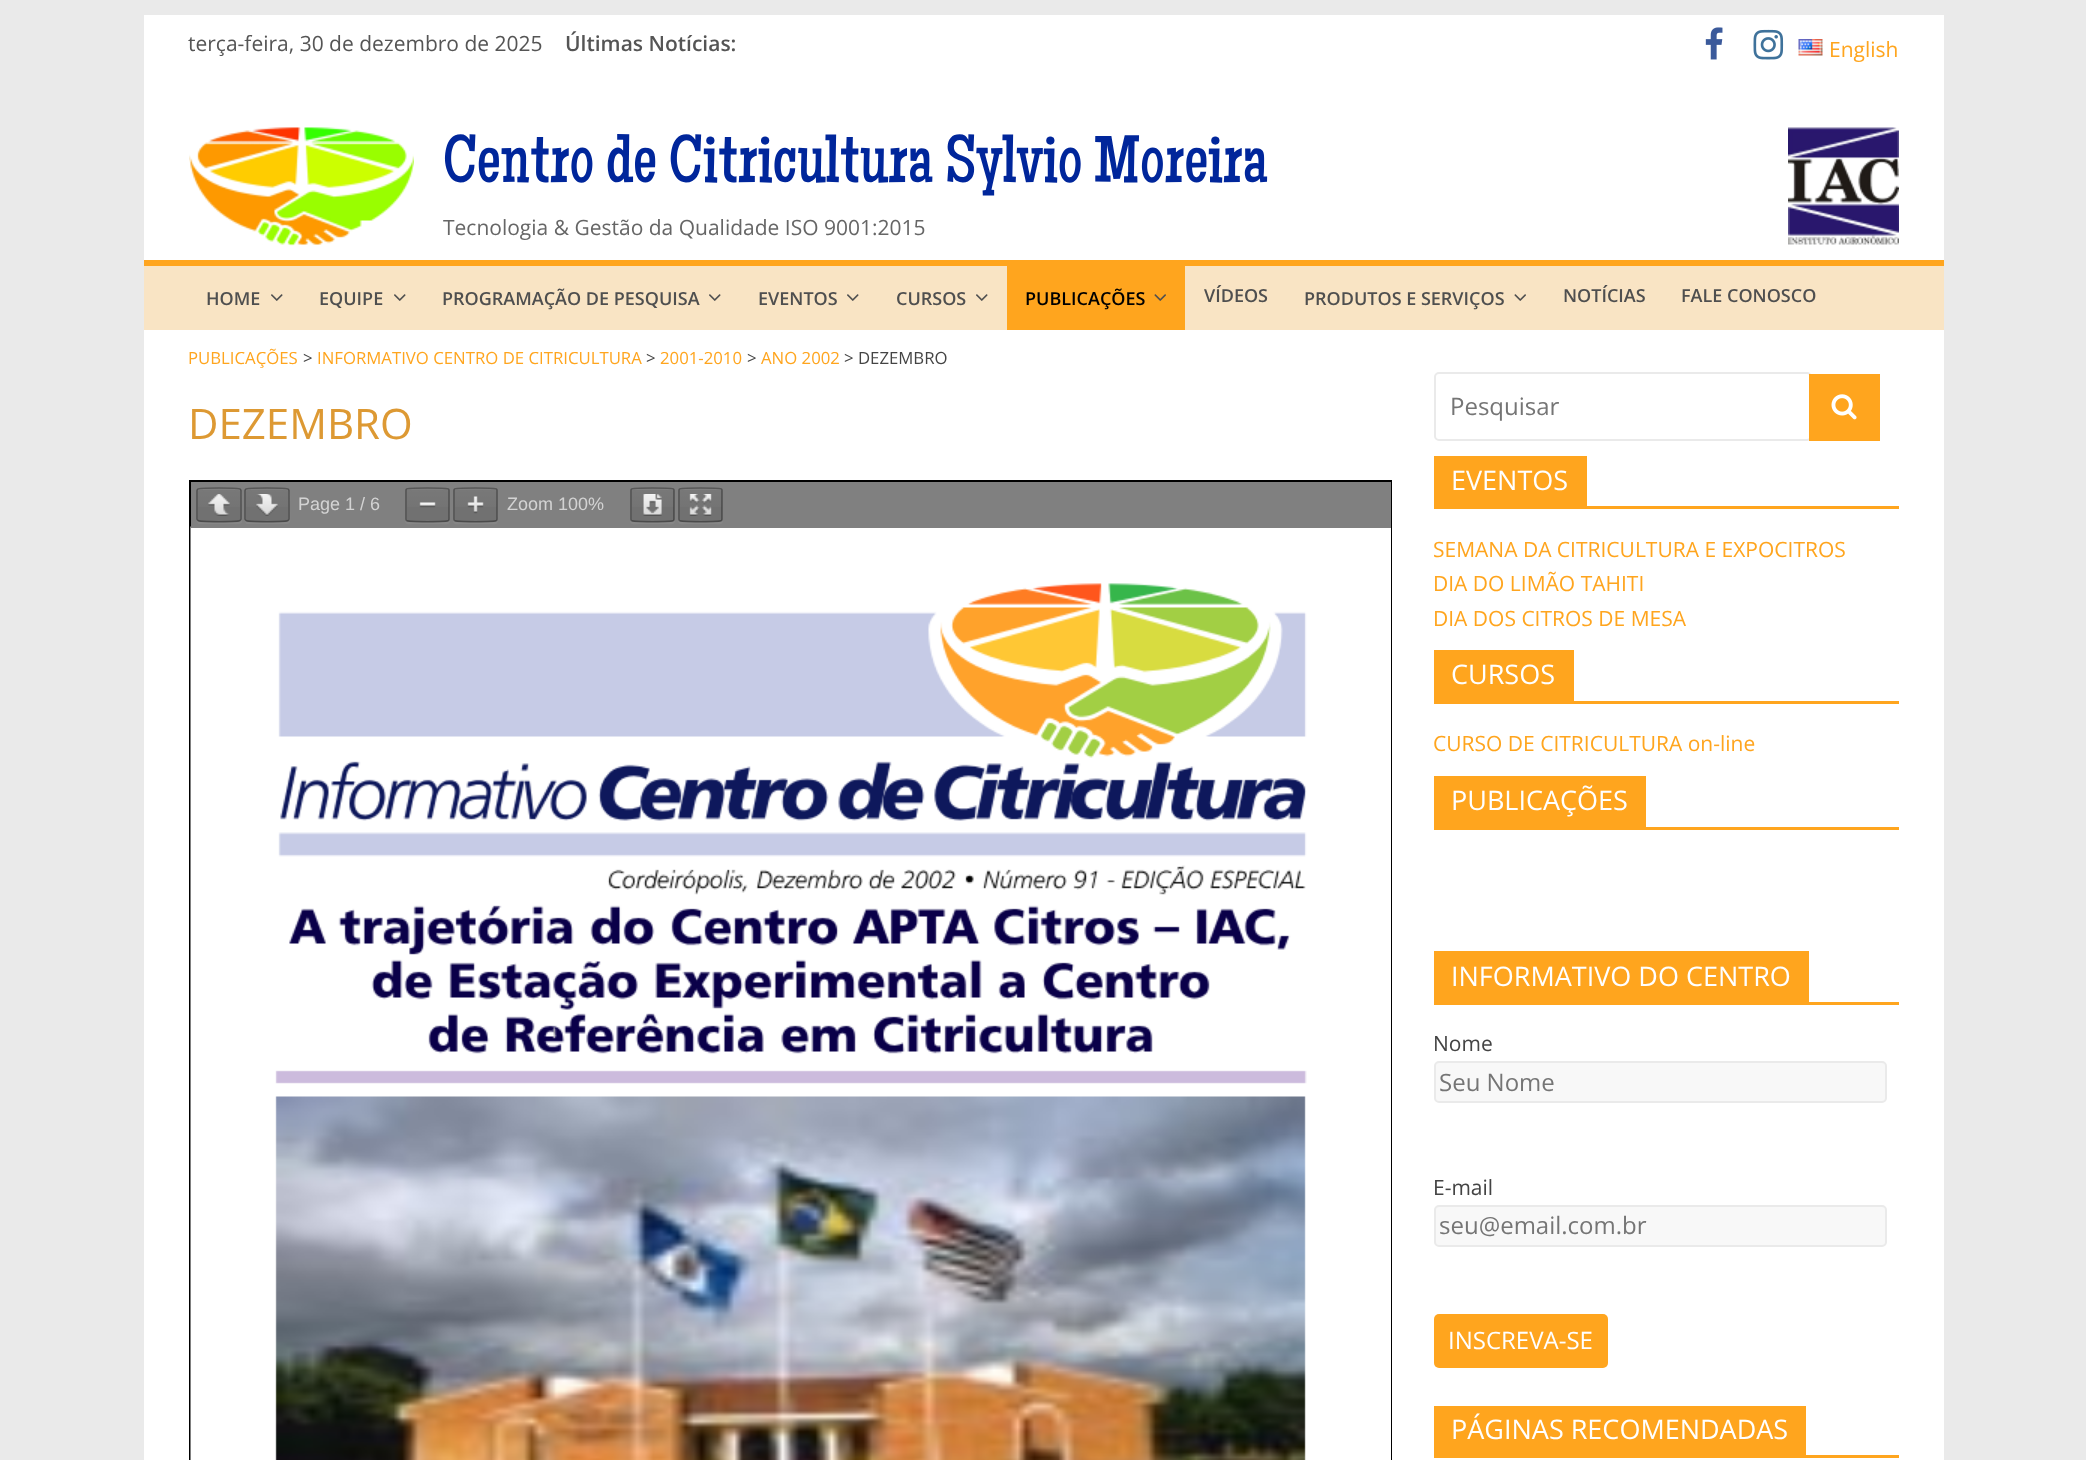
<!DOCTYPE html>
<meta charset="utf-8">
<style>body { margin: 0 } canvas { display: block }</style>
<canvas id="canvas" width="2086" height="1460"></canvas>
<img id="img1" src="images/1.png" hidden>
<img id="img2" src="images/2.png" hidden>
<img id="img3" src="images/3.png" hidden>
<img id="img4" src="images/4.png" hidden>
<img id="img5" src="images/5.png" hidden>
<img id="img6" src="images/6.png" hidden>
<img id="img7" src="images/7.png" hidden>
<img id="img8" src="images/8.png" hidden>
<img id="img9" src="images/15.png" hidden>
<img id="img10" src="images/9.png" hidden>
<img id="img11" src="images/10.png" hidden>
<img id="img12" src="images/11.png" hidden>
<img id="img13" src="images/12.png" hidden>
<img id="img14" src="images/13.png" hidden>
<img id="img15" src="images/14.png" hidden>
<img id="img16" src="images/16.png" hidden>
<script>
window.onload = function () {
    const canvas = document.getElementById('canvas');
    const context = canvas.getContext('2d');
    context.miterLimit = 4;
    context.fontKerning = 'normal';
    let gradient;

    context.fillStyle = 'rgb(234, 234, 234)';
    context.fillRect(0, 0, 2086, 1460);
    context.fillStyle = 'rgb(255, 255, 255)';
    context.fillRect(144, 15, 1800, 245);
    context.drawImage(document.getElementById('img1'), 1705, 27, 18, 33);
    context.drawImage(document.getElementById('img2'), 1753, 29, 31, 31);
    context.drawImage(document.getElementById('img3'), 1798, 39, 25, 17);
    context.drawImage(document.getElementById('img4'), 189, 127, 225, 119);
    context.drawImage(document.getElementById('img5'), 1788, 127, 111, 118);
    context.fillStyle = 'rgb(249, 228, 196)';
    context.fillRect(144, 266, 1800, 64);
    context.fillStyle = 'rgb(255, 165, 30)';
    context.fillRect(144, 260, 1800, 6);
    context.drawImage(document.getElementById('img6'), 271, 294, 12, 7);
    context.drawImage(document.getElementById('img6'), 394, 294, 12, 7);
    context.drawImage(document.getElementById('img6'), 709, 294, 12, 7);
    context.drawImage(document.getElementById('img6'), 847, 294, 12, 7);
    context.drawImage(document.getElementById('img6'), 976, 294, 12, 7);
    context.fillRect(1007, 266, 178, 64);
    context.drawImage(document.getElementById('img7'), 1154, 294, 12, 7);
    context.drawImage(document.getElementById('img8'), 1514, 294, 12, 7);
    context.fillStyle = 'rgb(255, 255, 255)';
    context.fillRect(144, 330, 1800, 1130);
    context.strokeStyle = 'rgb(0, 0, 0)';
    context.lineWidth = 2;
    context.strokeRect(190, 481, 1201, 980);
    context.fillRect(1390, 528, 1, 932);
    context.drawImage(document.getElementById('img9'), 190, 526, 1201, 934);
    context.fillStyle = 'rgb(128, 128, 128)';
    context.fillRect(191, 482, 1200, 46);
    context.fillStyle = 'rgb(134, 134, 134)';
    context.beginPath();
    context.moveTo(197, 521);
    context.bezierCurveTo(197, 522, 198, 524, 199, 524);
    context.lineTo(226, 524);
    context.bezierCurveTo(246, 524, 242, 527, 242, 506);
    context.bezierCurveTo(242, 504, 243, 493, 241, 490);
    context.lineTo(242, 514);
    context.bezierCurveTo(242, 523, 241, 522, 232, 522);
    context.lineTo(206, 522);
    context.bezierCurveTo(204, 522, 199, 523, 197, 521);
    context.closePath();
    context.fill();
    context.fillStyle = 'rgb(113, 113, 113)';
    context.beginPath();
    context.roundRect(198, 489, 42, 32, 1.5);
    context.fill();
    gradient = context.createLinearGradient(219, 489, 219, 521);
    gradient.addColorStop(0, 'rgba(255, 255, 255, 0.05)');
    gradient.addColorStop(1, 'rgba(255, 255, 255, 0)');
    context.fillStyle = gradient;
    context.fillRect(198, 489, 42, 18);
    context.fillStyle = 'rgb(127, 127, 127)';
    context.beginPath();
    context.moveTo(200, 490);
    context.lineTo(238, 490);
    context.bezierCurveTo(239, 490, 240, 491, 240, 492);
    context.bezierCurveTo(240, 487, 237, 489, 232, 489);
    context.lineTo(206, 489);
    context.bezierCurveTo(201, 489, 198, 487, 198, 492);
    context.bezierCurveTo(198, 491, 199, 490, 200, 490);
    context.closePath();
    context.fill();
    context.beginPath();
    context.moveTo(198, 489);
    context.bezierCurveTo(199, 487.5, 239, 487.5, 240, 489);
    context.strokeStyle = 'rgb(87, 87, 87)';
    context.lineWidth = 1.5;
    context.stroke();
    context.beginPath();
    context.moveTo(240, 489);
    context.bezierCurveTo(240.5, 489.5, 241, 490, 241, 490.5);
    context.lineTo(241, 519);
    context.bezierCurveTo(241, 519.5, 240.5, 520, 240, 520.5);
    context.strokeStyle = 'rgba(0, 0, 0, 0.38)';
    context.stroke();
    context.beginPath();
    context.moveTo(240, 520.5);
    context.bezierCurveTo(239, 522, 199, 522, 198, 520.5);
    context.strokeStyle = 'rgba(0, 0, 0, 0.42)';
    context.stroke();
    context.beginPath();
    context.moveTo(198, 520.5);
    context.bezierCurveTo(197.5, 520, 197, 519.5, 197, 519);
    context.lineTo(197, 490.5);
    context.bezierCurveTo(197, 490, 197.5, 489.5, 198, 489);
    context.strokeStyle = 'rgba(0, 0, 0, 0.38)';
    context.stroke();
    context.drawImage(document.getElementById('img10'), 208, 494, 22, 22);
    context.fillStyle = 'rgb(134, 134, 134)';
    context.beginPath();
    context.moveTo(245, 521);
    context.bezierCurveTo(245, 522, 246, 524, 247, 524);
    context.lineTo(274, 524);
    context.bezierCurveTo(294, 524, 290, 527, 290, 506);
    context.bezierCurveTo(290, 504, 291, 493, 289, 490);
    context.lineTo(290, 514);
    context.bezierCurveTo(290, 523, 289, 522, 280, 522);
    context.lineTo(254, 522);
    context.bezierCurveTo(252, 522, 247, 523, 245, 521);
    context.closePath();
    context.fill();
    context.fillStyle = 'rgb(113, 113, 113)';
    context.beginPath();
    context.roundRect(246, 489, 42, 32, 1.5);
    context.fill();
    gradient = context.createLinearGradient(267, 489, 267, 521);
    gradient.addColorStop(0, 'rgba(255, 255, 255, 0.05)');
    gradient.addColorStop(1, 'rgba(255, 255, 255, 0)');
    context.fillStyle = gradient;
    context.fillRect(246, 489, 42, 18);
    context.fillStyle = 'rgb(127, 127, 127)';
    context.beginPath();
    context.moveTo(248, 490);
    context.lineTo(286, 490);
    context.bezierCurveTo(287, 490, 288, 491, 288, 492);
    context.bezierCurveTo(288, 487, 285, 489, 280, 489);
    context.lineTo(254, 489);
    context.bezierCurveTo(249, 489, 246, 487, 246, 492);
    context.bezierCurveTo(246, 491, 247, 490, 248, 490);
    context.closePath();
    context.fill();
    context.beginPath();
    context.moveTo(246, 489);
    context.bezierCurveTo(247, 487.5, 287, 487.5, 288, 489);
    context.strokeStyle = 'rgb(87, 87, 87)';
    context.stroke();
    context.beginPath();
    context.moveTo(288, 489);
    context.bezierCurveTo(288.5, 489.5, 289, 490, 289, 490.5);
    context.lineTo(289, 519);
    context.bezierCurveTo(289, 519.5, 288.5, 520, 288, 520.5);
    context.strokeStyle = 'rgba(0, 0, 0, 0.38)';
    context.stroke();
    context.beginPath();
    context.moveTo(288, 520.5);
    context.bezierCurveTo(287, 522, 247, 522, 246, 520.5);
    context.strokeStyle = 'rgba(0, 0, 0, 0.42)';
    context.stroke();
    context.beginPath();
    context.moveTo(246, 520.5);
    context.bezierCurveTo(245.5, 520, 245, 519.5, 245, 519);
    context.lineTo(245, 490.5);
    context.bezierCurveTo(245, 490, 245.5, 489.5, 246, 489);
    context.strokeStyle = 'rgba(0, 0, 0, 0.38)';
    context.stroke();
    context.drawImage(document.getElementById('img11'), 256, 494, 22, 22);
    context.fillStyle = 'rgb(134, 134, 134)';
    context.beginPath();
    context.moveTo(405, 519);
    context.bezierCurveTo(405, 526, 408, 524, 414, 524);
    context.lineTo(440, 524);
    context.bezierCurveTo(447, 524, 450, 526, 450, 519);
    context.bezierCurveTo(450, 521, 449, 522, 447, 522);
    context.lineTo(408, 522);
    context.bezierCurveTo(406, 522, 405, 521, 405, 519);
    context.closePath();
    context.fill();
    context.fillStyle = 'rgb(113, 113, 113)';
    context.beginPath();
    context.roundRect(407, 489, 42, 32, 1.5);
    context.fill();
    gradient = context.createLinearGradient(428, 489, 428, 521);
    gradient.addColorStop(0, 'rgba(255, 255, 255, 0.05)');
    gradient.addColorStop(1, 'rgba(255, 255, 255, 0)');
    context.fillStyle = gradient;
    context.fillRect(407, 489, 42, 18);
    context.fillStyle = 'rgba(255, 255, 255, 0.05)';
    context.beginPath();
    context.moveTo(408, 490);
    context.lineTo(440, 490);
    context.bezierCurveTo(444, 490, 448, 488, 448, 492);
    context.lineTo(448, 521);
    context.bezierCurveTo(450, 520, 449, 511, 449, 510);
    context.lineTo(449, 490);
    context.bezierCurveTo(448, 488, 413, 489, 408, 489);
    context.bezierCurveTo(408, 489, 407, 490, 407, 490);
    context.closePath();
    context.fill();
    context.beginPath();
    context.moveTo(406.5, 489);
    context.bezierCurveTo(407.5, 487.5, 447.5, 487.5, 448.5, 489);
    context.strokeStyle = 'rgb(87, 87, 87)';
    context.stroke();
    context.beginPath();
    context.moveTo(448.5, 489);
    context.bezierCurveTo(449, 489.5, 449, 490, 449, 490.5);
    context.lineTo(449, 519);
    context.bezierCurveTo(449, 519.5, 449, 520, 448.5, 520.5);
    context.strokeStyle = 'rgba(0, 0, 0, 0.38)';
    context.stroke();
    context.beginPath();
    context.moveTo(448.5, 520.5);
    context.bezierCurveTo(447.5, 522, 407.5, 522, 406.5, 520.5);
    context.strokeStyle = 'rgba(0, 0, 0, 0.42)';
    context.stroke();
    context.beginPath();
    context.moveTo(406.5, 520.5);
    context.bezierCurveTo(406, 520, 406, 519.5, 406, 519);
    context.lineTo(406, 490.5);
    context.bezierCurveTo(406, 490, 406, 489.5, 406.5, 489);
    context.strokeStyle = 'rgba(0, 0, 0, 0.38)';
    context.stroke();
    context.drawImage(document.getElementById('img12'), 419, 502, 17, 6);
    context.fillStyle = 'rgb(134, 134, 134)';
    context.beginPath();
    context.moveTo(453, 519);
    context.bezierCurveTo(453, 526, 456, 524, 462, 524);
    context.lineTo(488, 524);
    context.bezierCurveTo(495, 524, 498, 526, 498, 519);
    context.bezierCurveTo(498, 521, 497, 522, 495, 522);
    context.lineTo(456, 522);
    context.bezierCurveTo(454, 522, 453, 521, 453, 519);
    context.closePath();
    context.fill();
    context.fillStyle = 'rgb(113, 113, 113)';
    context.beginPath();
    context.roundRect(455, 489, 42, 32, 1.5);
    context.fill();
    gradient = context.createLinearGradient(476, 489, 476, 521);
    gradient.addColorStop(0, 'rgba(255, 255, 255, 0.05)');
    gradient.addColorStop(1, 'rgba(255, 255, 255, 0)');
    context.fillStyle = gradient;
    context.fillRect(455, 489, 42, 18);
    context.fillStyle = 'rgba(255, 255, 255, 0.05)';
    context.beginPath();
    context.moveTo(456, 490);
    context.lineTo(488, 490);
    context.bezierCurveTo(492, 490, 496, 488, 496, 492);
    context.lineTo(496, 521);
    context.bezierCurveTo(498, 520, 497, 511, 497, 510);
    context.lineTo(497, 490);
    context.bezierCurveTo(496, 488, 461, 489, 456, 489);
    context.bezierCurveTo(456, 489, 455, 490, 455, 490);
    context.closePath();
    context.fill();
    context.beginPath();
    context.moveTo(454.5, 489);
    context.bezierCurveTo(455.5, 487.5, 495.5, 487.5, 496.5, 489);
    context.strokeStyle = 'rgb(87, 87, 87)';
    context.stroke();
    context.beginPath();
    context.moveTo(496.5, 489);
    context.bezierCurveTo(497, 489.5, 497, 490, 497, 490.5);
    context.lineTo(497, 519);
    context.bezierCurveTo(497, 519.5, 497, 520, 496.5, 520.5);
    context.strokeStyle = 'rgba(0, 0, 0, 0.38)';
    context.stroke();
    context.beginPath();
    context.moveTo(496.5, 520.5);
    context.bezierCurveTo(495.5, 522, 455.5, 522, 454.5, 520.5);
    context.strokeStyle = 'rgba(0, 0, 0, 0.42)';
    context.stroke();
    context.beginPath();
    context.moveTo(454.5, 520.5);
    context.bezierCurveTo(454, 520, 454, 519.5, 454, 519);
    context.lineTo(454, 490.5);
    context.bezierCurveTo(454, 490, 454, 489.5, 454.5, 489);
    context.strokeStyle = 'rgba(0, 0, 0, 0.38)';
    context.stroke();
    context.drawImage(document.getElementById('img13'), 467, 496, 17, 18);
    context.fillStyle = 'rgb(134, 134, 134)';
    context.beginPath();
    context.moveTo(630, 519);
    context.bezierCurveTo(630, 526, 633, 524, 640, 524);
    context.lineTo(666, 524);
    context.bezierCurveTo(672, 524, 675, 526, 675, 519);
    context.bezierCurveTo(675, 521, 674, 522, 672, 522);
    context.lineTo(633, 522);
    context.bezierCurveTo(631, 522, 630, 521, 630, 519);
    context.closePath();
    context.fill();
    context.fillStyle = 'rgb(113, 113, 113)';
    context.beginPath();
    context.roundRect(632, 489, 42, 32, 1.5);
    context.fill();
    gradient = context.createLinearGradient(653, 489, 653, 521);
    gradient.addColorStop(0, 'rgba(255, 255, 255, 0.05)');
    gradient.addColorStop(1, 'rgba(255, 255, 255, 0)');
    context.fillStyle = gradient;
    context.fillRect(632, 489, 42, 18);
    context.fillStyle = 'rgb(127, 127, 127)';
    context.beginPath();
    context.moveTo(633, 490);
    context.lineTo(672, 490);
    context.bezierCurveTo(673, 490, 674, 491, 674, 492);
    context.bezierCurveTo(674, 487, 671, 489, 666, 489);
    context.lineTo(640, 489);
    context.bezierCurveTo(635, 489, 632, 487, 632, 492);
    context.bezierCurveTo(632, 491, 632, 490, 633, 490);
    context.closePath();
    context.fill();
    context.beginPath();
    context.moveTo(631.5, 489);
    context.bezierCurveTo(632.5, 487.5, 672.5, 487.5, 673.5, 489);
    context.strokeStyle = 'rgb(87, 87, 87)';
    context.stroke();
    context.beginPath();
    context.moveTo(673.5, 489);
    context.bezierCurveTo(674, 489.5, 674, 490, 674, 490.5);
    context.lineTo(674, 519);
    context.bezierCurveTo(674, 519.5, 674, 520, 673.5, 520.5);
    context.strokeStyle = 'rgba(0, 0, 0, 0.38)';
    context.stroke();
    context.beginPath();
    context.moveTo(673.5, 520.5);
    context.bezierCurveTo(672.5, 522, 632.5, 522, 631.5, 520.5);
    context.strokeStyle = 'rgba(0, 0, 0, 0.42)';
    context.stroke();
    context.beginPath();
    context.moveTo(631.5, 520.5);
    context.bezierCurveTo(631, 520, 631, 519.5, 631, 519);
    context.lineTo(631, 490.5);
    context.bezierCurveTo(631, 490, 631, 489.5, 631.5, 489);
    context.strokeStyle = 'rgba(0, 0, 0, 0.38)';
    context.stroke();
    context.drawImage(document.getElementById('img14'), 643, 494, 19, 22);
    context.fillStyle = 'rgb(134, 134, 134)';
    context.beginPath();
    context.moveTo(678, 519);
    context.bezierCurveTo(678, 526, 681, 524, 688, 524);
    context.lineTo(714, 524);
    context.bezierCurveTo(720, 524, 723, 526, 723, 519);
    context.bezierCurveTo(723, 521, 722, 522, 720, 522);
    context.lineTo(681, 522);
    context.bezierCurveTo(679, 522, 678, 521, 678, 519);
    context.closePath();
    context.fill();
    context.fillStyle = 'rgb(113, 113, 113)';
    context.beginPath();
    context.roundRect(680, 489, 42, 32, 1.5);
    context.fill();
    gradient = context.createLinearGradient(701, 489, 701, 521);
    gradient.addColorStop(0, 'rgba(255, 255, 255, 0.05)');
    gradient.addColorStop(1, 'rgba(255, 255, 255, 0)');
    context.fillStyle = gradient;
    context.fillRect(680, 489, 42, 18);
    context.fillStyle = 'rgb(127, 127, 127)';
    context.beginPath();
    context.moveTo(681, 490);
    context.lineTo(720, 490);
    context.bezierCurveTo(721, 490, 722, 491, 722, 492);
    context.bezierCurveTo(722, 487, 719, 489, 714, 489);
    context.lineTo(688, 489);
    context.bezierCurveTo(683, 489, 680, 487, 680, 492);
    context.bezierCurveTo(680, 491, 680, 490, 681, 490);
    context.closePath();
    context.fill();
    context.beginPath();
    context.moveTo(679.5, 489);
    context.bezierCurveTo(680.5, 487.5, 720.5, 487.5, 721.5, 489);
    context.strokeStyle = 'rgb(87, 87, 87)';
    context.stroke();
    context.beginPath();
    context.moveTo(721.5, 489);
    context.bezierCurveTo(722, 489.5, 722, 490, 722, 490.5);
    context.lineTo(722, 519);
    context.bezierCurveTo(722, 519.5, 722, 520, 721.5, 520.5);
    context.strokeStyle = 'rgba(0, 0, 0, 0.38)';
    context.stroke();
    context.beginPath();
    context.moveTo(721.5, 520.5);
    context.bezierCurveTo(720.5, 522, 680.5, 522, 679.5, 520.5);
    context.strokeStyle = 'rgba(0, 0, 0, 0.42)';
    context.stroke();
    context.beginPath();
    context.moveTo(679.5, 520.5);
    context.bezierCurveTo(679, 520, 679, 519.5, 679, 519);
    context.lineTo(679, 490.5);
    context.bezierCurveTo(679, 490, 679, 489.5, 679.5, 489);
    context.strokeStyle = 'rgba(0, 0, 0, 0.38)';
    context.stroke();
    context.drawImage(document.getElementById('img15'), 689, 494, 23, 22);
    context.beginPath();
    context.roundRect(1435, 373, 376, 67, 4);
    context.strokeStyle = 'rgb(234, 234, 234)';
    context.lineWidth = 2;
    context.stroke();
    context.fillStyle = 'rgb(255, 165, 30)';
    context.fillRect(1809, 374, 71, 67);
    context.drawImage(document.getElementById('img16'), 1831, 394, 26, 26);
    context.fillRect(1434, 506, 465, 3);
    context.fillRect(1434, 456, 153, 50);
    context.fillRect(1434, 701, 465, 3);
    context.fillRect(1434, 650, 140, 51);
    context.fillRect(1434, 827, 465, 3);
    context.fillRect(1434, 776, 212, 51);
    context.fillRect(1434, 1002, 465, 3);
    context.fillRect(1434, 951, 375, 51);
    context.fillStyle = 'rgb(248, 248, 248)';
    context.beginPath();
    context.roundRect(1435, 1062, 451, 40, 4);
    context.fill();
    context.stroke();
    context.beginPath();
    context.roundRect(1435, 1206, 451, 40, 4);
    context.fill();
    context.stroke();
    context.fillStyle = 'rgb(255, 165, 30)';
    context.beginPath();
    context.roundRect(1434, 1314, 174, 54, 5);
    context.fill();
    context.fillRect(1434, 1455, 465, 3);
    context.fillRect(1434, 1406, 372, 49);
    context.font = '21px Open Sans';
    context.fillStyle = 'rgb(85, 85, 85)';
    context.fillText('terça-feira, 30 de dezembro de 2025', 188, 51);
    context.font = '600 21px Open Sans';
    context.fillText('Últimas Notícias:', 565, 51);
    context.font = '21px Open Sans';
    context.fillStyle = 'rgb(255, 165, 30)';
    context.fillText('English', 1829, 57);
    context.font = '67.5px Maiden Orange';
    context.fillStyle = 'rgb(0, 38, 155)';
    context.fillText('Centro de Citricultura Sylvio Moreira', 443, 182);
    context.font = '21px Open Sans';
    context.fillStyle = 'rgb(102, 102, 102)';
    context.fillText('Tecnologia & Gestão da Qualidade ISO 9001:2015', 443, 235);
    context.font = '600 18px Open Sans';
    context.fillStyle = 'rgb(79, 79, 79)';
    context.fillText('HOME', 206, 305);
    context.fillText('EQUIPE', 319, 305);
    context.fillText('PROGRAMAÇÃO DE PESQUISA', 442, 305);
    context.fillText('EVENTOS', 758, 305);
    context.fillText('CURSOS', 896, 305);
    context.fillStyle = 'rgb(0, 0, 0)';
    context.fillText('PUBLICAÇÕES', 1025, 305);
    context.fillStyle = 'rgb(79, 79, 79)';
    context.fillText('VÍDEOS', 1204, 302);
    context.fillText('PRODUTOS E SERVIÇOS', 1304, 305);
    context.fillText('NOTÍCIAS', 1563, 302);
    context.fillText('FALE CONOSCO', 1681, 302);
    context.font = '16.75px Open Sans';
    context.fillStyle = 'rgb(255, 165, 30)';
    context.fillText('PUBLICAÇÕES', 188, 364);
    context.fillStyle = 'rgb(68, 68, 68)';
    context.fillText('>', 303, 364);
    context.fillStyle = 'rgb(255, 165, 30)';
    context.fillText('INFORMATIVO CENTRO DE CITRICULTURA', 317, 364);
    context.fillStyle = 'rgb(68, 68, 68)';
    context.fillText('>', 646, 364);
    context.fillStyle = 'rgb(255, 165, 30)';
    context.fillText('2001-2010', 660, 364);
    context.fillStyle = 'rgb(68, 68, 68)';
    context.fillText('>', 747, 364);
    context.fillStyle = 'rgb(255, 165, 30)';
    context.fillText('ANO 2002', 761, 364);
    context.fillStyle = 'rgb(68, 68, 68)';
    context.fillText('> DEZEMBRO', 844, 364);
    context.font = '42px Open Sans';
    context.fillStyle = 'rgb(221, 153, 51)';
    context.fillText('DEZEMBRO', 188, 439);
    context.font = '18px Liberation Sans';
    context.fillStyle = 'rgb(211, 211, 211)';
    context.fillText('Page 1 / 6', 298, 510);
    context.fillText('Zoom 100%', 507, 510);
    context.font = '24px Open Sans';
    context.fillStyle = 'rgb(117, 117, 117)';
    context.fillText('Pesquisar', 1450, 415);
    context.font = '27px Open Sans';
    context.fillStyle = 'rgb(255, 255, 255)';
    context.fillText('EVENTOS', 1451, 490);
    context.font = '21px Open Sans';
    context.fillStyle = 'rgb(255, 165, 30)';
    context.fillText('SEMANA DA CITRICULTURA E EXPOCITROS', 1433, 557);
    context.fillText('DIA DO LIMÃO TAHITI', 1433, 591);
    context.fillText('DIA DOS CITROS DE MESA', 1433, 626);
    context.font = '27px Open Sans';
    context.fillStyle = 'rgb(255, 255, 255)';
    context.fillText('CURSOS', 1451, 684);
    context.font = '21px Open Sans';
    context.fillStyle = 'rgb(255, 165, 30)';
    context.fillText('CURSO DE CITRICULTURA on-line', 1433, 751);
    context.font = '27px Open Sans';
    context.fillStyle = 'rgb(255, 255, 255)';
    context.fillText('PUBLICAÇÕES', 1451, 810);
    context.fillText('INFORMATIVO DO CENTRO', 1451, 986);
    context.font = '21px Open Sans';
    context.fillStyle = 'rgb(68, 68, 68)';
    context.fillText('Nome', 1433, 1051);
    context.font = '24px Open Sans';
    context.fillStyle = 'rgb(117, 117, 117)';
    context.fillText('Seu Nome', 1439, 1091);
    context.font = '21px Open Sans';
    context.fillStyle = 'rgb(68, 68, 68)';
    context.fillText('E-mail', 1433, 1195);
    context.font = '24px Open Sans';
    context.fillStyle = 'rgb(117, 117, 117)';
    context.fillText('seu@email.com.br', 1439, 1234);
    context.fillStyle = 'rgb(255, 255, 255)';
    context.fillText('INSCREVA-SE', 1448, 1349);
    context.font = '27px Open Sans';
    context.fillText('PÁGINAS RECOMENDADAS', 1451, 1439);
};
</script>
